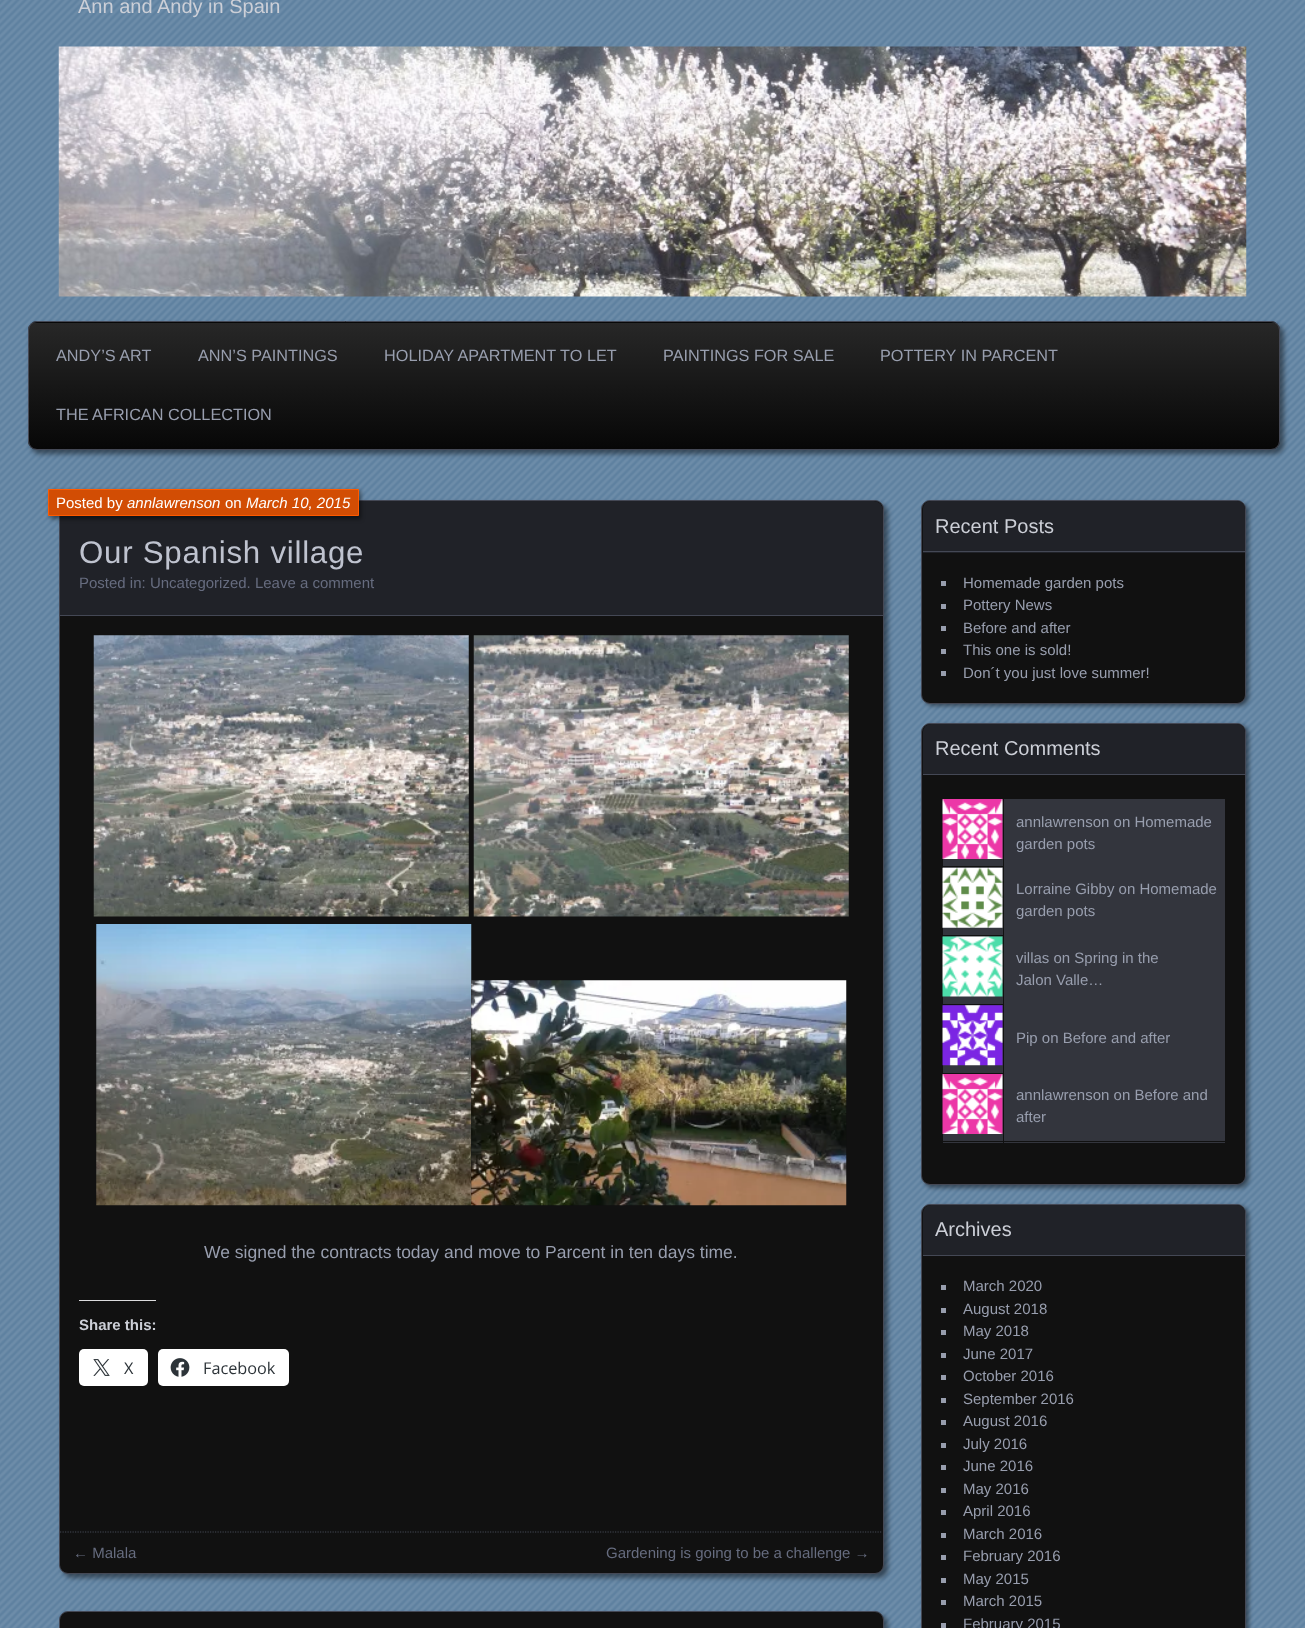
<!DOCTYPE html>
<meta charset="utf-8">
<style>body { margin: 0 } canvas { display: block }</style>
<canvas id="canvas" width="1305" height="1628"></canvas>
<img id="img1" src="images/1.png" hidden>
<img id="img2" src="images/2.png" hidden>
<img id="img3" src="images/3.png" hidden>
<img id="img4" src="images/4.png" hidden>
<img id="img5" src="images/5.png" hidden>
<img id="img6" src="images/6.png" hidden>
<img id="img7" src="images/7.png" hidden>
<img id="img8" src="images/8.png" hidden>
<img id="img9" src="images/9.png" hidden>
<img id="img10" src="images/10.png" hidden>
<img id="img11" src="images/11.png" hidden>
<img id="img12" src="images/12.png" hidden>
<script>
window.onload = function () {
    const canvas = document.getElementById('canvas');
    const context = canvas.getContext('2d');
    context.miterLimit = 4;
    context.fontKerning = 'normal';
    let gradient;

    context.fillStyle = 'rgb(94, 129, 160)';
    context.fillRect(0, 0, 1305, 1628);
    context.drawImage(document.getElementById('img1'), 0, 0, 1305, 1628);
    context.drawImage(document.getElementById('img2'), 58, 46, 1189, 251);
    context.fillStyle = 'rgba(0, 0, 0, 0.45)';
    context.filter = 'blur(2.5px)';
    context.beginPath();
    context.roundRect(31, 325, 1253, 129, 9);
    context.fill();
    context.filter = 'none';
    context.save();
    context.beginPath();
    context.roundRect(28, 321, 1252, 129, 9);
    context.clip();
    gradient = context.createLinearGradient(654, 196, 654, 323);
    gradient.addColorStop(0.01, 'rgb(39, 39, 39)');
    gradient.addColorStop(1, 'rgb(7, 7, 7)');
    context.fillStyle = gradient;
    context.fillRect(28, 321, 1252, 2);
    gradient = context.createLinearGradient(654, 322, 654, 449);
    gradient.addColorStop(0.01, 'rgb(39, 39, 39)');
    gradient.addColorStop(1, 'rgb(7, 7, 7)');
    context.fillStyle = gradient;
    context.fillRect(28, 323, 1252, 126);
    context.restore();
    context.beginPath();
    context.roundRect(28.5, 321.5, 1251, 128, 8.5);
    context.strokeStyle = 'rgb(68, 72, 85)';
    context.stroke();
    context.filter = 'blur(2.5px)';
    context.beginPath();
    context.roundRect(63, 504, 825, 1074, 9);
    context.fill();
    context.filter = 'none';
    context.fillStyle = 'rgb(17, 17, 17)';
    context.beginPath();
    context.roundRect(59.5, 500.5, 824, 1073, 8.5);
    context.fill();
    context.stroke();
    context.fillStyle = 'rgb(32, 34, 40)';
    context.beginPath();
    context.roundRect(60, 501, 823, 115, [9, 9, 0, 0]);
    context.fill();
    context.fillStyle = 'rgb(68, 72, 85)';
    context.fillRect(60, 615, 823, 1);
    context.fillStyle = 'rgba(0, 0, 0, 0.45)';
    context.filter = 'blur(2px)';
    context.beginPath();
    context.rect(50, 491, 311, 28);
    context.fill();
    context.filter = 'none';
    context.fillStyle = 'rgb(210, 77, 4)';
    context.beginPath();
    context.rect(48.5, 489.5, 310, 26);
    context.fill();
    context.strokeStyle = 'rgb(255, 90, 0)';
    context.stroke();
    context.drawImage(document.getElementById('img3'), 93, 635, 376, 282);
    context.drawImage(document.getElementById('img4'), 473, 635, 376, 282);
    context.drawImage(document.getElementById('img5'), 96, 924, 376, 282);
    context.drawImage(document.getElementById('img6'), 471, 980, 376, 226);
    context.fillStyle = 'rgb(220, 220, 222)';
    context.fillRect(79, 1300, 77, 1);
    context.fillStyle = 'rgb(255, 255, 255)';
    context.beginPath();
    context.roundRect(79, 1349, 69, 37, 5);
    context.fill();
    context.drawImage(document.getElementById('img7'), 93, 1359, 17, 17);
    context.beginPath();
    context.roundRect(158, 1349, 131, 37, 5);
    context.fill();
    context.drawImage(document.getElementById('img8'), 170, 1358, 20, 19);
    context.beginPath();
    context.moveTo(60, 1532);
    context.lineTo(882.5, 1532);
    context.strokeStyle = 'rgb(68, 72, 85)';
    context.lineWidth = 1.2;
    context.setLineDash([1.25, 1.25]);
    context.stroke();
    context.fillStyle = 'rgba(0, 0, 0, 0.45)';
    context.filter = 'blur(2.5px)';
    context.beginPath();
    context.roundRect(63, 1615, 825, 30, 9);
    context.fill();
    context.filter = 'none';
    context.fillStyle = 'rgb(17, 17, 17)';
    context.beginPath();
    context.roundRect(59.5, 1611.5, 824, 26, 8.5);
    context.fill();
    context.lineWidth = 1;
    context.setLineDash([]);
    context.stroke();
    context.fillStyle = 'rgba(0, 0, 0, 0.45)';
    context.filter = 'blur(2px)';
    context.beginPath();
    context.roundRect(924, 503, 325, 203, 9);
    context.fill();
    context.filter = 'none';
    context.fillStyle = 'rgb(17, 17, 17)';
    context.beginPath();
    context.roundRect(921.5, 500.5, 324, 203, 8.5);
    context.fill();
    context.stroke();
    context.fillStyle = 'rgb(32, 34, 40)';
    context.beginPath();
    context.roundRect(923, 501, 322, 52, [8, 8, 0, 0]);
    context.fill();
    context.fillStyle = 'rgb(68, 72, 85)';
    context.fillRect(923, 551, 322, 1);
    context.fillStyle = 'rgb(152, 158, 174)';
    context.fillRect(941, 581, 5, 5);
    context.fillRect(941, 604, 5, 5);
    context.fillRect(941, 626, 5, 5);
    context.fillRect(941, 649, 5, 5);
    context.fillRect(941, 671, 5, 5);
    context.fillStyle = 'rgba(0, 0, 0, 0.45)';
    context.filter = 'blur(2px)';
    context.beginPath();
    context.roundRect(924, 725, 325, 463, 9);
    context.fill();
    context.filter = 'none';
    context.fillStyle = 'rgb(17, 17, 17)';
    context.beginPath();
    context.roundRect(921.5, 723.5, 324, 461, 8.5);
    context.fill();
    context.stroke();
    context.fillStyle = 'rgb(32, 34, 40)';
    context.beginPath();
    context.roundRect(923, 724, 322, 51, [8, 8, 0, 0]);
    context.fill();
    context.fillStyle = 'rgb(68, 72, 85)';
    context.fillRect(923, 774, 322, 1);
    context.fillStyle = 'rgb(51, 53, 61)';
    context.fillRect(1004, 799, 221, 344);
    context.fillRect(943, 1074, 60, 69);
    context.fillStyle = 'rgb(17, 17, 17)';
    context.fillRect(941, 1141, 285, 1);
    context.fillStyle = 'rgb(51, 53, 61)';
    context.fillRect(943, 799, 60, 136);
    context.drawImage(document.getElementById('img9'), 942, 799, 61, 60);
    context.fillStyle = 'rgb(17, 17, 17)';
    context.fillRect(941, 866, 63, 1);
    context.drawImage(document.getElementById('img10'), 942, 867, 61, 61);
    context.fillStyle = 'rgb(51, 53, 61)';
    context.fillRect(943, 936, 60, 68);
    context.drawImage(document.getElementById('img11'), 942, 936, 61, 61);
    context.fillRect(943, 1005, 60, 68);
    context.drawImage(document.getElementById('img12'), 942, 1005, 61, 61);
    context.drawImage(document.getElementById('img9'), 942, 1074, 61, 60);
    context.fillStyle = 'rgba(0, 0, 0, 0.45)';
    context.filter = 'blur(2px)';
    context.beginPath();
    context.roundRect(924, 1206, 325, 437, 9);
    context.fill();
    context.filter = 'none';
    context.fillStyle = 'rgb(17, 17, 17)';
    context.beginPath();
    context.roundRect(921.5, 1204.5, 324, 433, 8.5);
    context.fill();
    context.stroke();
    context.fillStyle = 'rgb(32, 34, 40)';
    context.beginPath();
    context.roundRect(923, 1205, 322, 51, [8, 8, 0, 0]);
    context.fill();
    context.fillStyle = 'rgb(68, 72, 85)';
    context.fillRect(923, 1255, 322, 1);
    context.fillStyle = 'rgb(152, 158, 174)';
    context.fillRect(941, 1285, 5, 5);
    context.fillRect(941, 1308, 5, 5);
    context.fillRect(941, 1330, 5, 5);
    context.fillRect(941, 1353, 5, 5);
    context.fillRect(941, 1375, 5, 5);
    context.fillRect(941, 1398, 5, 5);
    context.fillRect(941, 1420, 5, 5);
    context.fillRect(941, 1443, 5, 5);
    context.fillRect(941, 1465, 5, 5);
    context.fillRect(941, 1488, 5, 5);
    context.fillRect(941, 1510, 5, 5);
    context.fillRect(941, 1533, 5, 5);
    context.fillRect(941, 1555, 5, 5);
    context.fillRect(941, 1578, 5, 5);
    context.fillRect(941, 1600, 5, 5);
    context.fillRect(941, 1623, 5, 5);
    context.font = '20px Liberation Sans';
    context.fillStyle = 'rgb(204, 207, 215)';
    context.fillText('Ann and Andy in Spain', 78, 13);
    context.font = '16.25px Liberation Sans';
    context.fillStyle = 'rgb(152, 158, 174)';
    context.fillText('ANDY’S ART', 56, 361);
    context.fillText('ANN’S PAINTINGS', 198, 361);
    context.fillText('HOLIDAY APARTMENT TO LET', 384, 361);
    context.fillText('PAINTINGS FOR SALE', 663, 361);
    context.fillText('POTTERY IN PARCENT', 880, 361);
    context.fillText('THE AFRICAN COLLECTION', 56, 420);
    context.font = '15px Liberation Sans';
    context.fillStyle = 'rgb(255, 255, 255)';
    context.fillText('Posted by', 56, 508);
    context.font = 'italic 15px Liberation Sans';
    context.fillText('annlawrenson', 127, 508);
    context.font = '15px Liberation Sans';
    context.fillText('on', 225, 508);
    context.font = 'italic 15px Liberation Sans';
    context.fillText('March 10, 2015', 246, 508);
    context.letterSpacing = '0.75px';
    context.font = '31.25px Liberation Sans';
    context.fillStyle = 'rgb(191, 195, 207)';
    context.fillText('Our Spanish village', 79, 563);
    context.letterSpacing = '0px';
    context.font = '15px Liberation Sans';
    context.fillStyle = 'rgb(102, 108, 127)';
    context.fillText('Posted in: Uncategorized. Leave a comment', 79, 588);
    context.font = '17.5px Liberation Sans';
    context.fillStyle = 'rgb(152, 158, 174)';
    context.fillText('We signed the contracts today and move to Parcent in ten days time.', 204, 1258);
    context.font = 'bold 15px Liberation Sans';
    context.fillStyle = 'rgb(204, 207, 215)';
    context.fillText('Share this:', 79, 1330);
    context.font = '16.25px Open Sans';
    context.fillStyle = 'rgb(44, 51, 56)';
    context.fillText('X', 124, 1374);
    context.fillText('Facebook', 203, 1374);
    context.font = '15px Liberation Sans';
    context.fillStyle = 'rgb(102, 108, 127)';
    context.fillText('← Malala', 73, 1558);
    context.fillText('Gardening is going to be a challenge →', 606, 1558);
    context.font = '20px Liberation Sans';
    context.fillStyle = 'rgb(204, 207, 215)';
    context.fillText('Recent Posts', 935, 533);
    context.font = '15px Liberation Sans';
    context.fillStyle = 'rgb(152, 158, 174)';
    context.fillText('Homemade garden pots', 963, 588);
    context.fillText('Pottery News', 963, 610);
    context.fillText('Before and after', 963, 633);
    context.fillText('This one is sold!', 963, 655);
    context.fillText('Don´t you just love summer!', 963, 678);
    context.font = '20px Liberation Sans';
    context.fillStyle = 'rgb(204, 207, 215)';
    context.fillText('Recent Comments', 935, 755);
    context.font = '15px Liberation Sans';
    context.fillStyle = 'rgb(152, 158, 174)';
    context.fillText('annlawrenson on Homemade', 1016, 827);
    context.fillText('garden pots', 1016, 849);
    context.fillText('Lorraine Gibby on Homemade', 1016, 894);
    context.fillText('garden pots', 1016, 916);
    context.fillText('villas on Spring in the', 1016, 963);
    context.fillText('Jalon Valle…', 1016, 985);
    context.fillText('Pip on Before and after', 1016, 1043);
    context.fillText('annlawrenson on Before and', 1016, 1100);
    context.fillText('after', 1016, 1122);
    context.font = '20px Liberation Sans';
    context.fillStyle = 'rgb(204, 207, 215)';
    context.fillText('Archives', 935, 1236);
    context.font = '15px Liberation Sans';
    context.fillStyle = 'rgb(152, 158, 174)';
    context.fillText('March 2020', 963, 1291);
    context.fillText('August 2018', 963, 1314);
    context.fillText('May 2018', 963, 1336);
    context.fillText('June 2017', 963, 1359);
    context.fillText('October 2016', 963, 1381);
    context.fillText('September 2016', 963, 1404);
    context.fillText('August 2016', 963, 1426);
    context.fillText('July 2016', 963, 1449);
    context.fillText('June 2016', 963, 1471);
    context.fillText('May 2016', 963, 1494);
    context.fillText('April 2016', 963, 1516);
    context.fillText('March 2016', 963, 1539);
    context.fillText('February 2016', 963, 1561);
    context.fillText('May 2015', 963, 1584);
    context.fillText('March 2015', 963, 1606);
    context.fillText('February 2015', 963, 1629);
};
</script>
